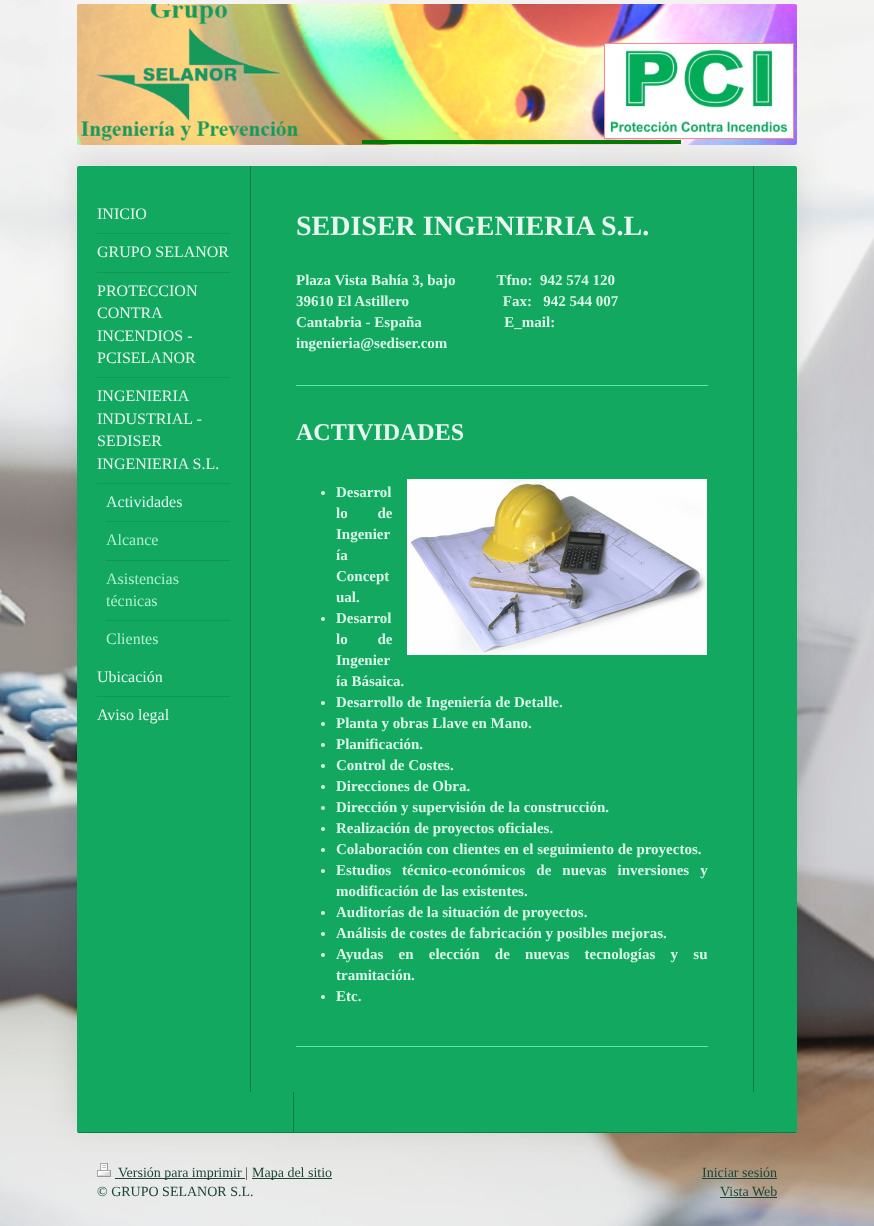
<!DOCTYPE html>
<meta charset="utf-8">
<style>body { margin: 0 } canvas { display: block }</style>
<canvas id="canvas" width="874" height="1226"></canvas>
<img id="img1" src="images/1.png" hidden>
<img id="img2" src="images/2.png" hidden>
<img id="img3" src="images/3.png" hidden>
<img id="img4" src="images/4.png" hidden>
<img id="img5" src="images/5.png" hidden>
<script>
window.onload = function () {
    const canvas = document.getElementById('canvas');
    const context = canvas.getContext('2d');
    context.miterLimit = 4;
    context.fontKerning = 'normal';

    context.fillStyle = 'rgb(255, 255, 255)';
    context.fillRect(0, 0, 874, 1226);
    context.drawImage(document.getElementById('img1'), 0, 0, 874, 1226);
    context.fillStyle = 'rgb(251, 249, 190)';
    context.beginPath();
    context.roundRect(77, 4, 720, 141, 2);
    context.fill();
    context.drawImage(document.getElementById('img2'), 77, 4, 720, 141);
    context.fillStyle = 'rgba(0, 0, 0, 0.1)';
    context.filter = 'blur(15px)';
    context.beginPath();
    context.roundRect(77, 156, 720, 967, 2);
    context.fill();
    context.filter = 'none';
    context.strokeStyle = 'rgb(250, 137, 141)';
    context.strokeRect(604.5, 43.5, 189, 95);
    context.drawImage(document.getElementById('img3'), 605, 44, 188, 94);
    context.fillStyle = 'rgb(3, 122, 4)';
    context.fillRect(362, 140, 319, 4);
    context.fillStyle = 'rgb(18, 168, 95)';
    context.beginPath();
    context.roundRect(77, 166, 720, 967, 2);
    context.fill();
    context.fillStyle = 'rgb(13, 122, 69)';
    context.fillRect(78, 1132, 718, 1);
    context.fillStyle = 'rgb(16, 151, 86)';
    context.fillRect(97, 233, 133, 1);
    context.fillRect(97, 272, 133, 1);
    context.fillRect(97, 377, 133, 1);
    context.fillRect(97, 483, 133, 1);
    context.fillRect(106, 521, 124, 1);
    context.fillRect(106, 560, 124, 1);
    context.fillRect(106, 620, 124, 1);
    context.fillRect(97, 696, 133, 1);
    context.fillStyle = 'rgb(13, 122, 69)';
    context.fillRect(753, 166, 1, 926);
    context.fillRect(250, 166, 1, 926);
    context.fillStyle = 'rgb(92, 231, 164)';
    context.fillRect(296, 385, 412, 1);
    context.drawImage(document.getElementById('img4'), 407, 479, 300, 176);
    context.fillStyle = 'rgb(217, 245, 231)';
    context.beginPath();
    context.arc(323, 493, 2, 0, 2 * Math.PI);
    context.fill();
    context.beginPath();
    context.arc(323, 619, 2, 0, 2 * Math.PI);
    context.fill();
    context.beginPath();
    context.arc(323, 703, 2, 0, 2 * Math.PI);
    context.fill();
    context.beginPath();
    context.arc(323, 724, 2, 0, 2 * Math.PI);
    context.fill();
    context.beginPath();
    context.arc(323, 745, 2, 0, 2 * Math.PI);
    context.fill();
    context.beginPath();
    context.arc(323, 766, 2, 0, 2 * Math.PI);
    context.fill();
    context.beginPath();
    context.arc(323, 787, 2, 0, 2 * Math.PI);
    context.fill();
    context.beginPath();
    context.arc(323, 808, 2, 0, 2 * Math.PI);
    context.fill();
    context.beginPath();
    context.arc(323, 829, 2, 0, 2 * Math.PI);
    context.fill();
    context.beginPath();
    context.arc(323, 850, 2, 0, 2 * Math.PI);
    context.fill();
    context.beginPath();
    context.arc(323, 871, 2, 0, 2 * Math.PI);
    context.fill();
    context.beginPath();
    context.arc(323, 913, 2, 0, 2 * Math.PI);
    context.fill();
    context.beginPath();
    context.arc(323, 934, 2, 0, 2 * Math.PI);
    context.fill();
    context.beginPath();
    context.arc(323, 955, 2, 0, 2 * Math.PI);
    context.fill();
    context.beginPath();
    context.arc(323, 997, 2, 0, 2 * Math.PI);
    context.fill();
    context.fillStyle = 'rgb(92, 231, 164)';
    context.fillRect(296, 1046, 412, 1);
    context.fillStyle = 'rgb(13, 122, 69)';
    context.fillRect(293, 1092, 1, 40);
    context.drawImage(document.getElementById('img5'), 97, 1163, 14, 14);
    context.fillStyle = 'rgb(29, 70, 56)';
    context.fillRect(115, 1178, 130, 1);
    context.fillRect(252, 1178, 80, 1);
    context.fillRect(702, 1178, 75, 1);
    context.fillRect(720, 1197, 57, 1);
    context.font = '16px Liberation Serif';
    context.fillStyle = 'rgb(231, 246, 239)';
    context.fillText('INICIO', 97, 219);
    context.fillText('GRUPO SELANOR', 97, 257);
    context.fillText('PROTECCION', 97, 296);
    context.fillText('CONTRA', 97, 318);
    context.fillText('INCENDIOS -', 97, 341);
    context.fillText('PCISELANOR', 97, 363);
    context.fillText('INGENIERIA', 97, 401);
    context.fillText('INDUSTRIAL -', 97, 424);
    context.fillText('SEDISER', 97, 446);
    context.fillText('INGENIERIA S.L.', 97, 469);
    context.fillStyle = 'rgb(217, 249, 238)';
    context.fillText('Actividades', 106, 507);
    context.fillStyle = 'rgb(175, 240, 209)';
    context.fillText('Alcance', 106, 545);
    context.fillText('Asistencias', 106, 584);
    context.fillText('técnicas', 106, 606);
    context.fillText('Clientes', 106, 644);
    context.fillStyle = 'rgb(231, 246, 239)';
    context.fillText('Ubicación', 97, 682);
    context.fillText('Aviso legal', 97, 720);
    context.font = 'bold 28px Liberation Serif';
    context.fillText('SEDISER INGENIERIA S.L.', 296, 235);
    context.font = 'bold 15px Liberation Serif';
    context.fillStyle = 'rgb(217, 245, 231)';
    context.fillText('Plaza Vista Bahía 3, bajo           Tfno:  942 574 120', 296, 285);
    context.fillText('39610 El Astillero                         Fax:   942 544 007', 296, 306);
    context.fillText('Cantabria - España                      E_mail:', 296, 327);
    context.fillText('ingenieria@sediser.com', 296, 348);
    context.font = 'bold 24px Liberation Serif';
    context.fillStyle = 'rgb(231, 246, 239)';
    context.fillText('ACTIVIDADES', 296, 440);
    context.font = 'bold 15px Liberation Serif';
    context.fillStyle = 'rgb(217, 245, 231)';
    context.fillText('Desarrol', 336, 497);
    context.wordSpacing = '26px';
    context.fillText('lo de', 336, 518);
    context.wordSpacing = '0px';
    context.fillText('Ingenier', 336, 539);
    context.fillText('ía', 336, 560);
    context.fillText('Concept', 336, 581);
    context.fillText('ual.', 336, 602);
    context.fillText('Desarrol', 336, 623);
    context.wordSpacing = '26px';
    context.fillText('lo de', 336, 644);
    context.wordSpacing = '0px';
    context.fillText('Ingenier', 336, 665);
    context.fillText('ía Básaica.', 336, 686);
    context.fillText('Desarrollo de Ingeniería de Detalle.', 336, 707);
    context.fillText('Planta y obras Llave en Mano.', 336, 728);
    context.fillText('Planificación.', 336, 749);
    context.fillText('Control de Costes.', 336, 770);
    context.fillText('Direcciones de Obra.', 336, 791);
    context.fillText('Dirección y supervisión de la construcción.', 336, 812);
    context.fillText('Realización de proyectos oficiales.', 336, 833);
    context.fillText('Colaboración con clientes en el seguimiento de proyectos.', 336, 854);
    context.wordSpacing = '7.25px';
    context.fillText('Estudios técnico-económicos de nuevas inversiones y', 336, 875);
    context.wordSpacing = '0px';
    context.fillText('modificación de las existentes.', 336, 896);
    context.fillText('Auditorías de la situación de proyectos.', 336, 917);
    context.fillText('Análisis de costes de fabricación y posibles mejoras.', 336, 938);
    context.wordSpacing = '11.5px';
    context.fillText('Ayudas en elección de nuevas tecnologías y su', 336, 959);
    context.wordSpacing = '0px';
    context.fillText('tramitación.', 336, 980);
    context.fillText('Etc.', 336, 1001);
    context.font = '14px Liberation Serif';
    context.fillStyle = 'rgb(29, 70, 56)';
    context.fillText('Versión para imprimir |', 118, 1177);
    context.fillText('Mapa del sitio', 252, 1177);
    context.fillText('© GRUPO SELANOR S.L.', 97, 1196);
    context.fillText('Iniciar sesión', 702, 1177);
    context.fillText('Vista Web', 720, 1196);
};
</script>
